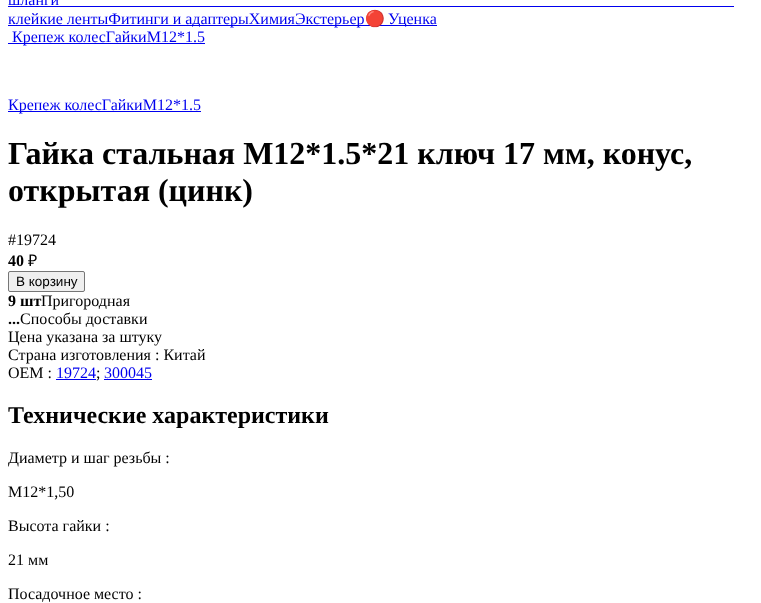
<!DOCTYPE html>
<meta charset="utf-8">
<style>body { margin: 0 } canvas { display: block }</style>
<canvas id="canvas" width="761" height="603"></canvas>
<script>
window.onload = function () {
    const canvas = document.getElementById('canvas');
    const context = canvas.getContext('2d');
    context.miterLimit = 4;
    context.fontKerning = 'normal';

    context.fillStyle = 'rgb(255, 255, 255)';
    context.fillRect(0, 0, 761, 603);
    context.fillStyle = 'rgb(0, 0, 238)';
    context.fillRect(8, 6, 726, 1);
    context.fillRect(8, 25, 429, 1);
    context.fillRect(8, 43, 197, 1);
    context.fillRect(8, 111, 193, 1);
    context.fillStyle = 'rgb(239, 239, 239)';
    context.beginPath();
    context.roundRect(8.5, 271.5, 76, 20, 1.5);
    context.fill();
    context.strokeStyle = 'rgb(118, 118, 118)';
    context.stroke();
    context.fillStyle = 'rgb(0, 0, 238)';
    context.fillRect(56, 379, 40, 1);
    context.fillRect(104, 379, 48, 1);
    context.font = '16px Liberation Serif';
    context.fillText('шланги', 8, 5);
    context.fillText('клейкие лентыФитинги и адаптерыХимияЭкстерьер', 8, 24);
    context.font = '16px Noto Color Emoji';
    context.fillText('🔴', 365, 24);
    context.font = '16px Liberation Serif';
    context.fillText('Уценка', 388, 24);
    context.fillText('Крепеж колесГайкиM12*1.5', 12, 42);
    context.fillText('Крепеж колесГайкиM12*1.5', 8, 110);
    context.font = 'bold 32px Liberation Serif';
    context.fillStyle = 'rgb(0, 0, 0)';
    context.fillText('Гайка стальная M12*1.5*21 ключ 17 мм, конус,', 8, 164);
    context.fillText('открытая (цинк)', 8, 201);
    context.font = '16px Liberation Serif';
    context.fillText('#19724', 8, 245);
    context.font = 'bold 16px Liberation Serif';
    context.fillText('40', 8, 266);
    context.font = '16px Noto Sans';
    context.fillText('₽', 28, 266);
    context.font = '13.5px Liberation Sans';
    context.fillText('В корзину', 16, 286);
    context.font = 'bold 16px Liberation Serif';
    context.fillText('9 шт', 8, 306);
    context.font = '16px Liberation Serif';
    context.fillText('Пригородная', 41, 306);
    context.font = 'bold 16px Liberation Serif';
    context.fillText('...', 8, 324);
    context.font = '16px Liberation Serif';
    context.fillText('Способы доставки', 20, 324);
    context.fillText('Цена указана за штуку', 8, 342);
    context.fillText('Страна изготовления : Китай', 8, 360);
    context.fillText('OEM :', 8, 378);
    context.fillStyle = 'rgb(0, 0, 238)';
    context.fillText('19724', 56, 378);
    context.fillStyle = 'rgb(0, 0, 0)';
    context.fillText(';', 96, 378);
    context.fillStyle = 'rgb(0, 0, 238)';
    context.fillText('300045', 104, 378);
    context.font = 'bold 24px Liberation Serif';
    context.fillStyle = 'rgb(0, 0, 0)';
    context.fillText('Технические характеристики', 8, 423);
    context.font = '16px Liberation Serif';
    context.fillText('Диаметр и шаг резьбы :', 8, 463);
    context.fillText('М12*1,50', 8, 497);
    context.fillText('Высота гайки :', 8, 531);
    context.fillText('21 мм', 8, 565);
    context.fillText('Посадочное место :', 8, 599);
};
</script>
